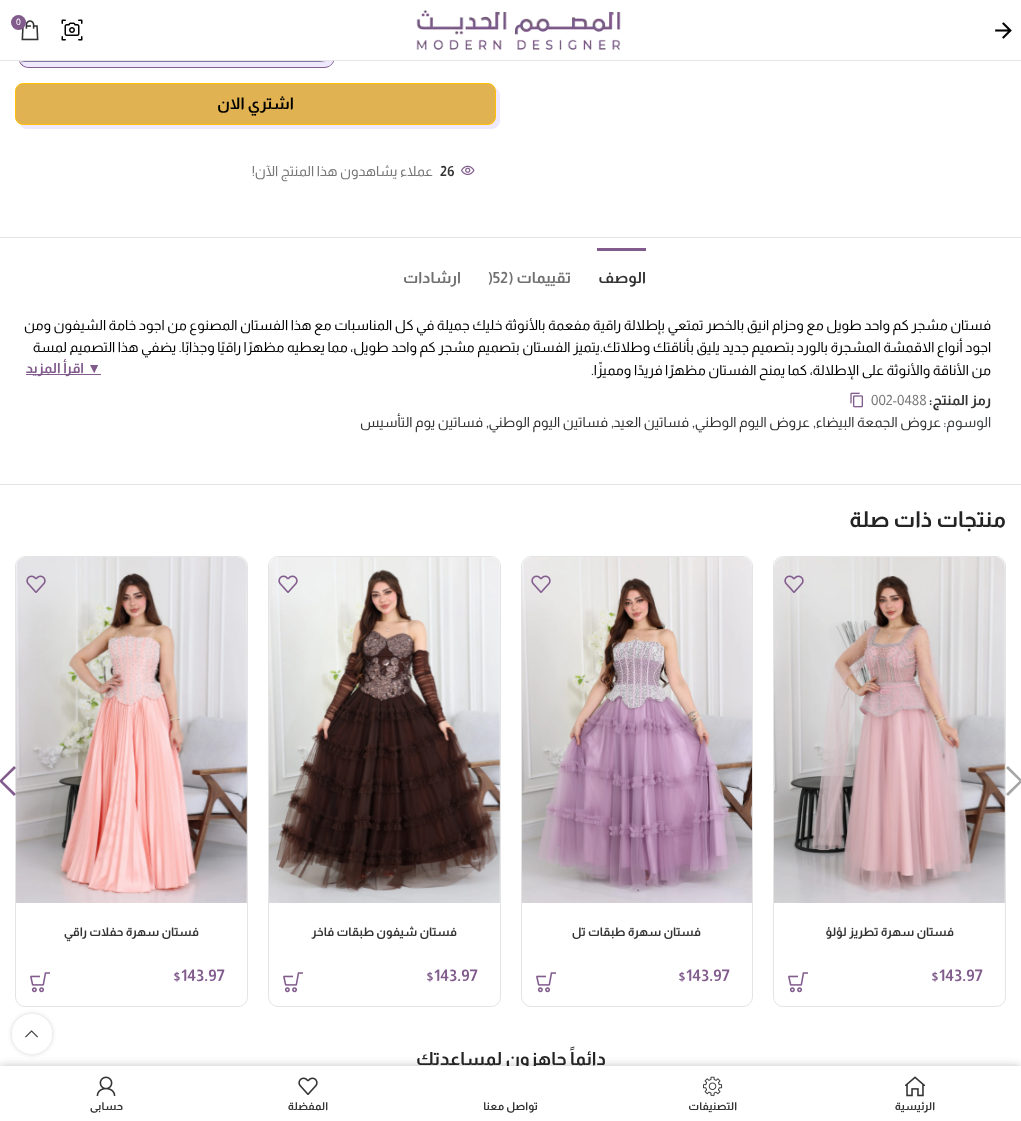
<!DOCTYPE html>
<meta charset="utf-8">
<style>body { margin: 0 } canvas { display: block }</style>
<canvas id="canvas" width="1021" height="1121"></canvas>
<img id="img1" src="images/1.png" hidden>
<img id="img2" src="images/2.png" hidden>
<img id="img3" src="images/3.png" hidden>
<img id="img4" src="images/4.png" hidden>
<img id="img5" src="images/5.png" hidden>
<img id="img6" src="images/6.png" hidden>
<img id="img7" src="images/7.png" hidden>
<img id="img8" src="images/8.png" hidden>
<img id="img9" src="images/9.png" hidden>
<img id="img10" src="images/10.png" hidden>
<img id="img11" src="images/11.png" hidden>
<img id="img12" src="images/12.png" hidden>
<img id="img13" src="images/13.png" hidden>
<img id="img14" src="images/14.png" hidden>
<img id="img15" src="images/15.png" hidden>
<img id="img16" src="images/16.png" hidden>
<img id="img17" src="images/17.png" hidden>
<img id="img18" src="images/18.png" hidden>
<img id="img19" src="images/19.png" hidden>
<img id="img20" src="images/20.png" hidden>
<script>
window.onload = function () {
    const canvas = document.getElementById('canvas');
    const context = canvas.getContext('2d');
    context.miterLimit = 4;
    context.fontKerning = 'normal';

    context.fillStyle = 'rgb(255, 255, 255)';
    context.fillRect(0, 0, 1021, 1121);
    context.fillStyle = 'rgb(130, 92, 141)';
    context.beginPath();
    context.moveTo(19, 61);
    context.bezierCurveTo(20, 65, 24, 68, 29, 68);
    context.lineTo(324, 68);
    context.bezierCurveTo(330, 68, 335, 63, 335, 57);
    context.lineTo(335, 19);
    context.bezierCurveTo(335, 14, 332, 10, 328, 9);
    context.bezierCurveTo(329, 10, 330, 13, 330, 15);
    context.lineTo(330, 53);
    context.bezierCurveTo(330, 59, 326, 63, 320, 63);
    context.lineTo(25, 63);
    context.bezierCurveTo(23, 63, 20, 62, 19, 61);
    context.closePath();
    context.fill();
    context.fillStyle = 'rgb(239, 233, 255)';
    context.beginPath();
    context.moveTo(20, 62);
    context.bezierCurveTo(22, 65, 25, 67, 29, 67);
    context.lineTo(324, 67);
    context.bezierCurveTo(330, 67, 334, 63, 334, 57);
    context.lineTo(334, 19);
    context.bezierCurveTo(334, 15, 332, 12, 329, 10);
    context.bezierCurveTo(330, 12, 330, 13, 330, 15);
    context.lineTo(330, 53);
    context.bezierCurveTo(330, 59, 326, 63, 320, 63);
    context.lineTo(25, 63);
    context.bezierCurveTo(23, 63, 22, 63, 20, 62);
    context.closePath();
    context.fill();
    context.fillStyle = 'rgb(130, 115, 171)';
    context.beginPath();
    context.roundRect(15.5, 5.5, 314, 57, 9.5);
    context.fill();
    context.strokeStyle = 'rgb(242, 238, 245)';
    context.stroke();
    context.fillStyle = 'rgb(255, 255, 255)';
    context.fillRect(15, 5, 320, 55);
    context.fillStyle = 'rgb(230, 230, 230)';
    context.fillRect(0, 60, 1021, 1);
    context.drawImage(document.getElementById('img1'), 995, 22, 17, 17);
    context.drawImage(document.getElementById('img2'), 416, 10, 205, 40);
    context.drawImage(document.getElementById('img3'), 61, 19, 22, 22);
    context.drawImage(document.getElementById('img4'), 21, 20, 18, 21);
    context.fillStyle = 'rgb(128, 91, 140)';
    context.beginPath();
    context.arc(18.5, 22.5, 7.5, 0, 2 * Math.PI);
    context.fill();
    context.fillStyle = 'rgb(239, 233, 255)';
    context.beginPath();
    context.moveTo(20, 124);
    context.bezierCurveTo(21, 127, 24, 129, 27, 129);
    context.lineTo(492, 129);
    context.bezierCurveTo(496, 129, 500, 125, 500, 121);
    context.lineTo(500, 95);
    context.bezierCurveTo(500, 92, 498, 89, 495, 88);
    context.lineTo(496, 91);
    context.lineTo(496, 117);
    context.bezierCurveTo(496, 121, 492, 125, 488, 125);
    context.lineTo(23, 125);
    context.closePath();
    context.fill();
    context.fillStyle = 'rgb(224, 178, 82)';
    context.beginPath();
    context.roundRect(15.5, 83.5, 480, 41, 7.5);
    context.fill();
    context.strokeStyle = 'rgb(255, 193, 7)';
    context.stroke();
    context.drawImage(document.getElementById('img5'), 461, 165, 14, 11);
    context.fillStyle = 'rgb(228, 228, 228)';
    context.fillRect(0, 237, 1021, 1);
    context.fillRect(0, 484, 1021, 1);
    context.fillStyle = 'rgb(128, 91, 140)';
    context.fillRect(597, 248, 49, 3);
    context.drawImage(document.getElementById('img6'), 850, 392, 13, 16);
    context.fillStyle = 'rgb(165, 165, 165)';
    context.beginPath();
    context.moveTo(1006, 768);
    context.lineTo(1019.5, 781);
    context.lineTo(1006, 794);
    context.lineTo(1008, 796);
    context.lineTo(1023, 781);
    context.lineTo(1008, 766);
    context.closePath();
    context.fill();
    context.beginPath();
    context.roundRect(15.5, 556.5, 232, 450, 9.5);
    context.strokeStyle = 'rgb(228, 228, 228)';
    context.stroke();
    context.fillStyle = 'rgb(130, 92, 141)';
    context.beginPath();
    context.moveTo(16, 768);
    context.lineTo(14, 766);
    context.lineTo(-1, 781);
    context.lineTo(14, 796);
    context.lineTo(16, 794);
    context.lineTo(2.5, 781);
    context.closePath();
    context.fill();
    context.beginPath();
    context.roundRect(773.5, 556.5, 232, 450, 9.5);
    context.stroke();
    context.drawImage(document.getElementById('img7'), 774, 557, 231, 346);
    context.drawImage(document.getElementById('img8'), 784, 575, 20, 18);
    context.drawImage(document.getElementById('img9'), 788, 972, 20, 21);
    context.beginPath();
    context.roundRect(521.5, 556.5, 231, 450, 9.5);
    context.stroke();
    context.drawImage(document.getElementById('img10'), 522, 557, 230, 346);
    context.drawImage(document.getElementById('img11'), 531, 575, 20, 18);
    context.drawImage(document.getElementById('img9'), 536, 972, 20, 21);
    context.beginPath();
    context.roundRect(268.5, 556.5, 232, 450, 9.5);
    context.stroke();
    context.drawImage(document.getElementById('img12'), 269, 557, 231, 346);
    context.drawImage(document.getElementById('img13'), 278, 575, 20, 18);
    context.drawImage(document.getElementById('img9'), 283, 972, 20, 21);
    context.drawImage(document.getElementById('img14'), 16, 557, 231, 346);
    context.drawImage(document.getElementById('img15'), 26, 575, 20, 18);
    context.drawImage(document.getElementById('img9'), 30, 972, 20, 21);
    context.save();
    context.beginPath();
    context.moveTo(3, 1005);
    context.lineTo(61, 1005);
    context.lineTo(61, 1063);
    context.lineTo(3, 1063);
    context.closePath();
    context.moveTo(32, 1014);
    context.bezierCurveTo(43, 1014, 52, 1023, 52, 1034);
    context.bezierCurveTo(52, 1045, 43, 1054, 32, 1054);
    context.bezierCurveTo(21, 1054, 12, 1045, 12, 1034);
    context.bezierCurveTo(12, 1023, 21, 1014, 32, 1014);
    context.closePath();
    context.clip('evenodd');
    context.fillStyle = 'rgba(0, 0, 0, 0.17)';
    context.filter = 'blur(2.5px)';
    context.beginPath();
    context.roundRect(12, 1014, 40, 40, 20);
    context.fill();
    context.filter = 'none';
    context.restore();
    context.fillStyle = 'rgba(0, 0, 0, 0.12)';
    context.filter = 'blur(4.5px)';
    context.beginPath();
    context.rect(0, 1066, 1021, 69);
    context.fill();
    context.filter = 'none';
    context.fillStyle = 'rgba(255, 255, 255, 0.9)';
    context.beginPath();
    context.arc(32, 1034, 20, 0, 2 * Math.PI);
    context.fill();
    context.drawImage(document.getElementById('img16'), 25, 1030, 13, 8);
    context.fillStyle = 'rgba(0, 0, 0, 0.12)';
    context.filter = 'blur(4.5px)';
    context.beginPath();
    context.rect(0, 1066, 1021, 55);
    context.fill();
    context.filter = 'none';
    context.font = '9px Almarai';
    context.fillStyle = 'rgb(255, 255, 255)';
    context.fillText('0', 16, 25);
    context.direction = 'rtl';
    context.font = 'bold 16px Almarai';
    context.fillStyle = 'rgb(0, 0, 0)';
    context.fillText('اشتري الان', 294, 109);
    context.direction = 'ltr';
    context.font = 'bold 14px Almarai';
    context.fillStyle = 'rgb(51, 51, 51)';
    context.fillText('26', 440, 176);
    context.direction = 'rtl';
    context.font = '14px Almarai';
    context.fillStyle = 'rgb(119, 119, 119)';
    context.fillText('عملاء يشاهدون هذا المنتج الآن!', 433, 176);
    context.font = 'bold 15.5px Almarai';
    context.fillStyle = 'rgb(51, 51, 51)';
    context.fillText('الوصف', 646, 283);
    context.fillStyle = 'rgb(112, 112, 112)';
    context.fillText('تقييمات (', 571, 283);
    context.direction = 'ltr';
    context.fillText(')52', 488, 283);
    context.direction = 'rtl';
    context.fillText('ارشادات', 461, 283);
    context.font = '14px Almarai';
    context.fillStyle = 'rgb(0, 0, 0)';
    context.fillText('فستان مشجر كم واحد طويل مع وحزام انيق بالخصر تمتعي بإطلالة راقية مفعمة بالأنوثة خليك جميلة في كل المناسبات مع هذا الفستان المصنوع من اجود خامة الشيفون ومن', 991, 330);
    context.fillText('اجود أنواع الاقمشة المشجرة بالورد بتصميم جديد يليق بأناقتك وطلاتك.يتميز الفستان بتصميم مشجر كم واحد طويل، مما يعطيه مظهرًا راقيًا وجذابًا. يضفي هذا التصميم لمسة', 991, 352);
    context.fillText('من الأناقة والأنوثة على الإطلالة، كما يمنح الفستان مظهرًا فريدًا ومميزًا.', 991, 375);
    context.fillStyle = 'rgb(255, 255, 255)';
    context.beginPath();
    context.roundRect(20, 355, 87, 26, 3);
    context.fill();
    context.font = 'bold 14px Liberation Sans';
    context.fillStyle = 'rgb(128, 91, 140)';
    context.fillText('▼', 101, 373);
    context.fillStyle = 'rgb(130, 92, 141)';
    context.fillRect(26, 374, 75, 1);
    context.font = 'bold 14px Almarai';
    context.fillStyle = 'rgb(128, 91, 140)';
    context.fillText('اقرأ المزيد', 84, 373);
    context.fillStyle = 'rgb(51, 51, 51)';
    context.fillText('رمز المنتج:', 991, 405);
    context.direction = 'ltr';
    context.font = '14px Almarai';
    context.fillStyle = 'rgb(119, 119, 119)';
    context.fillText('002-0488', 871, 405);
    context.direction = 'rtl';
    context.fillStyle = 'rgb(60, 64, 67)';
    context.fillText('الوسوم:', 991, 427);
    context.fillStyle = 'rgb(51, 51, 51)';
    context.fillText('عروض الجمعة البيضاء', 941, 427);
    context.direction = 'ltr';
    context.fillStyle = 'rgb(60, 64, 67)';
    context.fillText(',', 813, 427);
    context.direction = 'rtl';
    context.fillStyle = 'rgb(51, 51, 51)';
    context.fillText('عروض اليوم الوطني', 810, 427);
    context.direction = 'ltr';
    context.fillStyle = 'rgb(60, 64, 67)';
    context.fillText(',', 692, 427);
    context.direction = 'rtl';
    context.fillStyle = 'rgb(51, 51, 51)';
    context.fillText('فساتين العيد', 689, 427);
    context.direction = 'ltr';
    context.fillStyle = 'rgb(60, 64, 67)';
    context.fillText(',', 611, 427);
    context.direction = 'rtl';
    context.fillStyle = 'rgb(51, 51, 51)';
    context.fillText('فساتين اليوم الوطني', 608, 427);
    context.direction = 'ltr';
    context.fillStyle = 'rgb(60, 64, 67)';
    context.fillText(',', 486, 427);
    context.direction = 'rtl';
    context.fillStyle = 'rgb(51, 51, 51)';
    context.fillText('فساتين يوم التأسيس', 483, 427);
    context.font = 'bold 22px Almarai';
    context.fillStyle = 'rgb(36, 36, 36)';
    context.fillText('منتجات ذات صلة', 1006, 527);
    context.font = 'bold 12px Almarai';
    context.fillStyle = 'rgb(51, 51, 51)';
    context.fillText('فستان سهرة تطريز لؤلؤ', 954, 936);
    context.direction = 'ltr';
    context.font = 'bold 16px Almarai';
    context.fillStyle = 'rgb(128, 91, 140)';
    context.fillText('143.97', 939, 981);
    context.font = 'bold 13px Almarai';
    context.fillText('$', 931, 981);
    context.direction = 'rtl';
    context.font = 'bold 12px Almarai';
    context.fillStyle = 'rgb(51, 51, 51)';
    context.fillText('فستان سهرة طبقات تل', 701, 936);
    context.direction = 'ltr';
    context.font = 'bold 16px Almarai';
    context.fillStyle = 'rgb(128, 91, 140)';
    context.fillText('143.97', 686, 981);
    context.font = 'bold 13px Almarai';
    context.fillText('$', 678, 981);
    context.direction = 'rtl';
    context.font = 'bold 12px Almarai';
    context.fillStyle = 'rgb(51, 51, 51)';
    context.fillText('فستان شيفون طبقات فاخر', 457, 936);
    context.direction = 'ltr';
    context.font = 'bold 16px Almarai';
    context.fillStyle = 'rgb(128, 91, 140)';
    context.fillText('143.97', 434, 981);
    context.font = 'bold 13px Almarai';
    context.fillText('$', 426, 981);
    context.direction = 'rtl';
    context.font = 'bold 12px Almarai';
    context.fillStyle = 'rgb(51, 51, 51)';
    context.fillText('فستان سهرة حفلات راقي', 199, 936);
    context.direction = 'ltr';
    context.font = 'bold 16px Almarai';
    context.fillStyle = 'rgb(128, 91, 140)';
    context.fillText('143.97', 181, 981);
    context.font = 'bold 13px Almarai';
    context.fillText('$', 173, 981);
    context.direction = 'rtl';
    context.font = 'bold 18px Almarai';
    context.fillStyle = 'rgb(36, 36, 36)';
    context.fillText('دائماً جاهزون لمساعدتك', 606, 1065);
    context.fillStyle = 'rgb(255, 255, 255)';
    context.fillRect(0, 1066, 1021, 55);
    context.drawImage(document.getElementById('img17'), 905, 1076, 20, 21);
    context.font = 'bold 11px Almarai';
    context.fillStyle = 'rgb(51, 51, 51)';
    context.fillText('الرئيسية', 935, 1110);
    context.drawImage(document.getElementById('img18'), 703, 1076, 20, 20);
    context.fillText('التصنيفات', 737, 1110);
    context.fillText('تواصل معنا', 538, 1110);
    context.drawImage(document.getElementById('img19'), 298, 1077, 20, 18);
    context.fillText('المفضلة', 328, 1110);
    context.drawImage(document.getElementById('img20'), 96, 1076, 20, 20);
    context.save();
    context.beginPath();
    context.rect(15, 1100, 182, 13);
    context.clip();
    context.fillText('حسابي', 123, 1110);
    context.restore();
};
</script>
